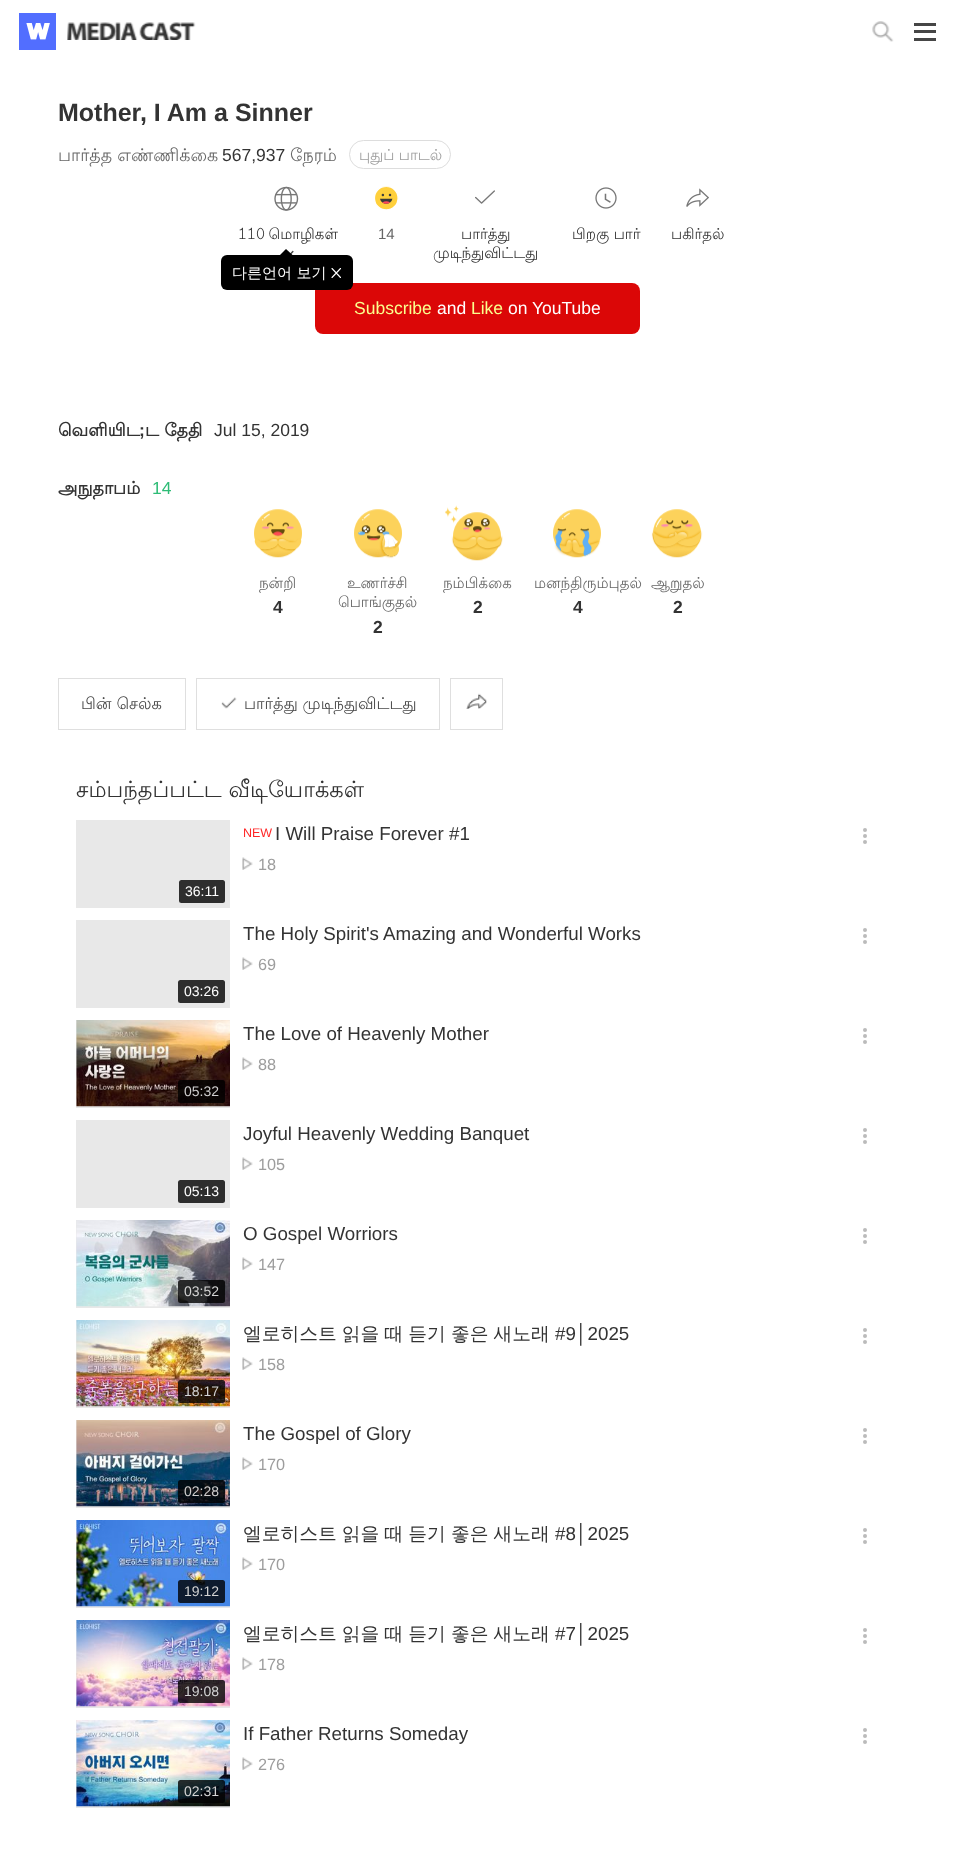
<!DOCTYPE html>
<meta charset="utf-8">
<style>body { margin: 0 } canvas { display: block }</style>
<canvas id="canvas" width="954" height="1854"></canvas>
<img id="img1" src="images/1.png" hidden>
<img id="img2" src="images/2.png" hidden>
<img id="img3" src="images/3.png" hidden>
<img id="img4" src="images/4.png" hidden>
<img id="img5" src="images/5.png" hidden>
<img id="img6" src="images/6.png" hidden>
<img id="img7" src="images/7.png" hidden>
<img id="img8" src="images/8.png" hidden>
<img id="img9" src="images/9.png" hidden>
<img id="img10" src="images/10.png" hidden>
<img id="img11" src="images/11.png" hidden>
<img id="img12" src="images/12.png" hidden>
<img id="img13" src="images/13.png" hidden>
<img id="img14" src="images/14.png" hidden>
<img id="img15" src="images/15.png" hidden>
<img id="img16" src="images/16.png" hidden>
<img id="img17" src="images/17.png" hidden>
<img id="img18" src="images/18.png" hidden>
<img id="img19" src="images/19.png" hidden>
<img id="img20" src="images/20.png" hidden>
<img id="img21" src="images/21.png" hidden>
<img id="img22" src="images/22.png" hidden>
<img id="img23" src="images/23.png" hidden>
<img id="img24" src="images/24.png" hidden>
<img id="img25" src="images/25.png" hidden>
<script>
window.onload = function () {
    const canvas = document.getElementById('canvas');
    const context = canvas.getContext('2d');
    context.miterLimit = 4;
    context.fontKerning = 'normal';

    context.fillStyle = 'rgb(255, 255, 255)';
    context.fillRect(0, 0, 954, 1854);
    context.fillStyle = 'rgb(82, 110, 255)';
    context.fillRect(19, 13, 37, 37);
    context.drawImage(document.getElementById('img1'), 26, 23, 24, 17);
    context.drawImage(document.getElementById('img2'), 67, 22, 129, 18);
    context.drawImage(document.getElementById('img3'), 872, 21, 22, 21);
    context.fillStyle = 'rgb(70, 70, 70)';
    context.fillRect(914, 30, 22, 3);
    context.fillRect(914, 23, 22, 3);
    context.fillRect(914, 38, 22, 3);
    context.beginPath();
    context.roundRect(349.5, 140.5, 101, 28, 14);
    context.strokeStyle = 'rgb(221, 221, 221)';
    context.stroke();
    context.drawImage(document.getElementById('img4'), 274, 186, 25, 25);
    context.drawImage(document.getElementById('img5'), 284, 250, 10, 5);
    context.fillStyle = 'rgb(0, 0, 0)';
    context.beginPath();
    context.moveTo(292.5, 255);
    context.lineTo(280, 255);
    context.lineTo(286, 249);
    context.closePath();
    context.fill();
    context.fillStyle = 'rgb(219, 7, 7)';
    context.beginPath();
    context.roundRect(315, 283, 325, 51, 8);
    context.fill();
    context.fillStyle = 'rgb(0, 0, 0)';
    context.beginPath();
    context.roundRect(221, 255, 132, 35, 6);
    context.fill();
    context.beginPath();
    context.moveTo(340.5, 268.5);
    context.lineTo(332, 277.5);
    context.moveTo(340.5, 277.5);
    context.lineTo(332, 268.5);
    context.strokeStyle = 'rgb(255, 255, 255)';
    context.lineWidth = 1.1;
    context.lineCap = 'round';
    context.stroke();
    context.drawImage(document.getElementById('img6'), 374, 186, 25, 24);
    context.drawImage(document.getElementById('img7'), 475, 190, 20, 14);
    context.drawImage(document.getElementById('img8'), 595, 187, 22, 22);
    context.drawImage(document.getElementById('img9'), 686, 188, 23, 19);
    context.drawImage(document.getElementById('img10'), 254, 509, 48, 49);
    context.drawImage(document.getElementById('img11'), 354, 509, 48, 50);
    context.drawImage(document.getElementById('img12'), 445, 505, 58, 56);
    context.drawImage(document.getElementById('img13'), 553, 509, 48, 49);
    context.drawImage(document.getElementById('img14'), 651, 509, 52, 49);
    context.strokeStyle = 'rgb(223, 223, 223)';
    context.lineWidth = 1;
    context.strokeRect(58.5, 678.5, 127, 51);
    context.strokeRect(196.5, 678.5, 243, 51);
    context.drawImage(document.getElementById('img15'), 221, 697, 16, 12);
    context.strokeRect(450.5, 678.5, 52, 51);
    context.drawImage(document.getElementById('img16'), 466, 693, 21, 16);
    context.drawImage(document.getElementById('img17'), 242, 857, 11, 13);
    context.fillStyle = 'rgb(187, 187, 187)';
    context.beginPath();
    context.arc(865, 836, 2, 0, 2 * Math.PI);
    context.fill();
    context.beginPath();
    context.arc(865, 830, 2, 0, 2 * Math.PI);
    context.fill();
    context.beginPath();
    context.arc(865, 842, 2, 0, 2 * Math.PI);
    context.fill();
    context.fillStyle = 'rgb(232, 232, 232)';
    context.fillRect(76, 820, 154, 88);
    context.fillStyle = 'rgb(46, 46, 46)';
    context.beginPath();
    context.roundRect(179, 880, 46, 23, 2.5);
    context.fill();
    context.drawImage(document.getElementById('img17'), 242, 957, 11, 13);
    context.fillStyle = 'rgb(187, 187, 187)';
    context.beginPath();
    context.arc(865, 936, 2, 0, 2 * Math.PI);
    context.fill();
    context.beginPath();
    context.arc(865, 930, 2, 0, 2 * Math.PI);
    context.fill();
    context.beginPath();
    context.arc(865, 942, 2, 0, 2 * Math.PI);
    context.fill();
    context.fillStyle = 'rgb(232, 232, 232)';
    context.fillRect(76, 920, 154, 88);
    context.fillStyle = 'rgb(46, 46, 46)';
    context.beginPath();
    context.roundRect(178, 980, 47, 23, 2.5);
    context.fill();
    context.drawImage(document.getElementById('img17'), 242, 1057, 11, 13);
    context.fillStyle = 'rgb(187, 187, 187)';
    context.beginPath();
    context.arc(865, 1036, 2, 0, 2 * Math.PI);
    context.fill();
    context.beginPath();
    context.arc(865, 1030, 2, 0, 2 * Math.PI);
    context.fill();
    context.beginPath();
    context.arc(865, 1042, 2, 0, 2 * Math.PI);
    context.fill();
    context.fillStyle = 'rgb(232, 232, 232)';
    context.fillRect(76, 1020, 154, 88);
    context.drawImage(document.getElementById('img18'), 76, 1020, 154, 87);
    context.fillStyle = 'rgba(0, 0, 0, 0.8)';
    context.beginPath();
    context.roundRect(178, 1080, 47, 23, 2.5);
    context.fill();
    context.drawImage(document.getElementById('img17'), 242, 1157, 11, 13);
    context.fillStyle = 'rgb(187, 187, 187)';
    context.beginPath();
    context.arc(865, 1136, 2, 0, 2 * Math.PI);
    context.fill();
    context.beginPath();
    context.arc(865, 1130, 2, 0, 2 * Math.PI);
    context.fill();
    context.beginPath();
    context.arc(865, 1142, 2, 0, 2 * Math.PI);
    context.fill();
    context.fillStyle = 'rgb(232, 232, 232)';
    context.fillRect(76, 1120, 154, 88);
    context.fillStyle = 'rgb(46, 46, 46)';
    context.beginPath();
    context.roundRect(178, 1180, 47, 23, 2.5);
    context.fill();
    context.drawImage(document.getElementById('img17'), 242, 1257, 11, 13);
    context.fillStyle = 'rgb(187, 187, 187)';
    context.beginPath();
    context.arc(865, 1236, 2, 0, 2 * Math.PI);
    context.fill();
    context.beginPath();
    context.arc(865, 1230, 2, 0, 2 * Math.PI);
    context.fill();
    context.beginPath();
    context.arc(865, 1242, 2, 0, 2 * Math.PI);
    context.fill();
    context.fillStyle = 'rgb(232, 232, 232)';
    context.fillRect(76, 1220, 154, 88);
    context.drawImage(document.getElementById('img19'), 76, 1220, 154, 87);
    context.fillStyle = 'rgba(0, 0, 0, 0.8)';
    context.beginPath();
    context.roundRect(178, 1280, 47, 23, 2.5);
    context.fill();
    context.drawImage(document.getElementById('img17'), 242, 1357, 11, 13);
    context.fillStyle = 'rgb(187, 187, 187)';
    context.beginPath();
    context.arc(865, 1336, 2, 0, 2 * Math.PI);
    context.fill();
    context.beginPath();
    context.arc(865, 1330, 2, 0, 2 * Math.PI);
    context.fill();
    context.beginPath();
    context.arc(865, 1342, 2, 0, 2 * Math.PI);
    context.fill();
    context.fillStyle = 'rgb(232, 232, 232)';
    context.fillRect(76, 1320, 154, 88);
    context.drawImage(document.getElementById('img20'), 76, 1320, 154, 87);
    context.fillStyle = 'rgba(0, 0, 0, 0.8)';
    context.beginPath();
    context.roundRect(178, 1380, 47, 23, 2.5);
    context.fill();
    context.drawImage(document.getElementById('img17'), 242, 1457, 11, 13);
    context.fillStyle = 'rgb(187, 187, 187)';
    context.beginPath();
    context.arc(865, 1436, 2, 0, 2 * Math.PI);
    context.fill();
    context.beginPath();
    context.arc(865, 1430, 2, 0, 2 * Math.PI);
    context.fill();
    context.beginPath();
    context.arc(865, 1442, 2, 0, 2 * Math.PI);
    context.fill();
    context.fillStyle = 'rgb(232, 232, 232)';
    context.fillRect(76, 1420, 154, 88);
    context.drawImage(document.getElementById('img21'), 76, 1420, 154, 87);
    context.fillStyle = 'rgba(0, 0, 0, 0.8)';
    context.beginPath();
    context.roundRect(178, 1480, 47, 23, 2.5);
    context.fill();
    context.drawImage(document.getElementById('img22'), 242, 1557, 11, 13);
    context.fillStyle = 'rgb(187, 187, 187)';
    context.beginPath();
    context.arc(865, 1536, 2, 0, 2 * Math.PI);
    context.fill();
    context.beginPath();
    context.arc(865, 1530, 2, 0, 2 * Math.PI);
    context.fill();
    context.beginPath();
    context.arc(865, 1542, 2, 0, 2 * Math.PI);
    context.fill();
    context.fillStyle = 'rgb(232, 232, 232)';
    context.fillRect(76, 1520, 154, 88);
    context.drawImage(document.getElementById('img23'), 76, 1520, 154, 87);
    context.fillStyle = 'rgba(0, 0, 0, 0.8)';
    context.beginPath();
    context.roundRect(178, 1580, 47, 23, 2.5);
    context.fill();
    context.drawImage(document.getElementById('img17'), 242, 1657, 11, 13);
    context.fillStyle = 'rgb(187, 187, 187)';
    context.beginPath();
    context.arc(865, 1636, 2, 0, 2 * Math.PI);
    context.fill();
    context.beginPath();
    context.arc(865, 1630, 2, 0, 2 * Math.PI);
    context.fill();
    context.beginPath();
    context.arc(865, 1642, 2, 0, 2 * Math.PI);
    context.fill();
    context.fillStyle = 'rgb(232, 232, 232)';
    context.fillRect(76, 1620, 154, 88);
    context.drawImage(document.getElementById('img24'), 76, 1620, 154, 87);
    context.fillStyle = 'rgba(0, 0, 0, 0.8)';
    context.beginPath();
    context.roundRect(178, 1680, 47, 23, 2.5);
    context.fill();
    context.drawImage(document.getElementById('img17'), 242, 1757, 11, 13);
    context.fillStyle = 'rgb(187, 187, 187)';
    context.beginPath();
    context.arc(865, 1736, 2, 0, 2 * Math.PI);
    context.fill();
    context.beginPath();
    context.arc(865, 1730, 2, 0, 2 * Math.PI);
    context.fill();
    context.beginPath();
    context.arc(865, 1742, 2, 0, 2 * Math.PI);
    context.fill();
    context.fillStyle = 'rgb(232, 232, 232)';
    context.fillRect(76, 1720, 154, 88);
    context.drawImage(document.getElementById('img25'), 76, 1720, 154, 87);
    context.fillStyle = 'rgba(0, 0, 0, 0.8)';
    context.beginPath();
    context.roundRect(178, 1780, 47, 23, 2.5);
    context.fill();
    context.font = 'bold 25px Liberation Sans';
    context.fillStyle = 'rgb(51, 51, 51)';
    context.fillText('Mother, I Am a Sinner', 58, 121);
    context.font = '17.5px Lohit Tamil';
    context.fillStyle = 'rgb(102, 102, 102)';
    context.fillText('பார்த்த எண்ணிக்கை', 58, 161);
    context.font = '17.5px Liberation Sans';
    context.fillStyle = 'rgb(51, 51, 51)';
    context.fillText('567,937', 222, 161);
    context.font = '17.5px Lohit Tamil';
    context.fillStyle = 'rgb(102, 102, 102)';
    context.fillText('நேரம்', 290, 161);
    context.font = '15px Lohit Tamil';
    context.fillStyle = 'rgb(157, 157, 157)';
    context.fillText('புதுப் பாடல்', 359, 160);
    context.wordSpacing = '-1px';
    context.fillStyle = 'rgb(51, 51, 51)';
    context.fillText('110 மொழிகள்', 238, 239);
    context.wordSpacing = '0px';
    context.font = '500 15px WenQuanYi Zen Hei';
    context.fillStyle = 'rgb(255, 255, 255)';
    context.fillText('다른언어 보기', 232, 278);
    context.font = '15px Liberation Sans';
    context.fillStyle = 'rgb(102, 102, 102)';
    context.fillText('14', 378, 239);
    context.font = '15px Lohit Tamil';
    context.fillStyle = 'rgb(51, 51, 51)';
    context.fillText('பார்த்து', 461, 239);
    context.fillText('முடிந்துவிட்டது', 433, 258);
    context.fillText('பிறகு பார்', 572, 239);
    context.fillText('பகிர்தல்', 671, 239);
    context.font = '17.5px Liberation Sans';
    context.fillStyle = 'rgb(251, 255, 142)';
    context.fillText('Subscribe', 354, 314);
    context.fillStyle = 'rgb(255, 255, 255)';
    context.fillText('and', 437, 314);
    context.fillStyle = 'rgb(251, 255, 142)';
    context.fillText('Like', 471, 314);
    context.fillStyle = 'rgb(255, 255, 255)';
    context.fillText('on YouTube', 508, 314);
    context.font = 'bold 17.5px Lohit Tamil';
    context.fillStyle = 'rgb(51, 51, 51)';
    context.fillText('வெளியிட', 58, 436);
    context.font = 'bold 17.5px Liberation Sans';
    context.fillText(';', 139, 436);
    context.font = 'bold 17.5px Lohit Tamil';
    context.fillText('ட தேதி', 145, 436);
    context.font = '17.5px Liberation Sans';
    context.fillText('Jul 15, 2019', 214, 436);
    context.font = 'bold 17.5px Lohit Tamil';
    context.fillText('அநுதாபம்', 58, 494);
    context.font = '17.5px Liberation Sans';
    context.fillStyle = 'rgb(46, 188, 118)';
    context.fillText('14', 152, 494);
    context.font = '15px Lohit Tamil';
    context.fillStyle = 'rgb(102, 102, 102)';
    context.fillText('நன்றி', 259, 588);
    context.font = 'bold 17.5px Liberation Sans';
    context.fillStyle = 'rgb(51, 51, 51)';
    context.fillText('4', 273, 613);
    context.font = '15px Lohit Tamil';
    context.fillStyle = 'rgb(102, 102, 102)';
    context.fillText('உணர்ச்சி', 347, 588);
    context.fillText('பொங்குதல்', 338, 607);
    context.font = 'bold 17.5px Liberation Sans';
    context.fillStyle = 'rgb(51, 51, 51)';
    context.fillText('2', 373, 633);
    context.font = '15px Lohit Tamil';
    context.fillStyle = 'rgb(102, 102, 102)';
    context.fillText('நம்பிக்கை', 443, 588);
    context.font = 'bold 17.5px Liberation Sans';
    context.fillStyle = 'rgb(51, 51, 51)';
    context.fillText('2', 473, 613);
    context.font = '15px Lohit Tamil';
    context.fillStyle = 'rgb(102, 102, 102)';
    context.fillText('மனந்திரும்புதல்', 534, 588);
    context.font = 'bold 17.5px Liberation Sans';
    context.fillStyle = 'rgb(51, 51, 51)';
    context.fillText('4', 573, 613);
    context.font = '15px Lohit Tamil';
    context.fillStyle = 'rgb(102, 102, 102)';
    context.fillText('ஆறுதல்', 651, 588);
    context.font = 'bold 17.5px Liberation Sans';
    context.fillStyle = 'rgb(51, 51, 51)';
    context.fillText('2', 673, 613);
    context.font = '16.25px Lohit Tamil';
    context.fillStyle = 'rgb(72, 72, 72)';
    context.fillText('பின் செல்க', 81, 709);
    context.fillText('பார்த்து முடிந்துவிட்டது', 244, 709);
    context.font = '22.5px Lohit Tamil';
    context.fillStyle = 'rgb(51, 51, 51)';
    context.fillText('சம்பந்தப்பட்ட வீடியோக்கள்', 76, 797);
    context.font = '12.5px Liberation Sans';
    context.fillStyle = 'rgb(255, 38, 38)';
    context.fillText('NEW', 243, 837);
    context.font = '18.75px Liberation Sans';
    context.fillStyle = 'rgb(51, 51, 51)';
    context.fillText('I Will Praise Forever #1', 275, 840);
    context.font = '16.25px Liberation Sans';
    context.fillStyle = 'rgb(157, 157, 157)';
    context.fillText('18', 258, 870);
    context.font = '14px Liberation Sans';
    context.fillStyle = 'rgb(255, 255, 255)';
    context.fillText('36:11', 185, 896);
    context.font = '18.75px Liberation Sans';
    context.fillStyle = 'rgb(51, 51, 51)';
    context.fillText('The Holy Spirit\'s Amazing and Wonderful Works', 243, 940);
    context.font = '16.25px Liberation Sans';
    context.fillStyle = 'rgb(157, 157, 157)';
    context.fillText('69', 258, 970);
    context.font = '14px Liberation Sans';
    context.fillStyle = 'rgb(255, 255, 255)';
    context.fillText('03:26', 184, 996);
    context.font = '18.75px Liberation Sans';
    context.fillStyle = 'rgb(51, 51, 51)';
    context.fillText('The Love of Heavenly Mother', 243, 1040);
    context.font = '16.25px Liberation Sans';
    context.fillStyle = 'rgb(157, 157, 157)';
    context.fillText('88', 258, 1070);
    context.font = '14px Liberation Sans';
    context.fillStyle = 'rgb(206, 205, 205)';
    context.fillText('05:32', 184, 1096);
    context.font = '18.75px Liberation Sans';
    context.fillStyle = 'rgb(51, 51, 51)';
    context.fillText('Joyful Heavenly Wedding Banquet', 243, 1140);
    context.font = '16.25px Liberation Sans';
    context.fillStyle = 'rgb(157, 157, 157)';
    context.fillText('105', 258, 1170);
    context.font = '14px Liberation Sans';
    context.fillStyle = 'rgb(255, 255, 255)';
    context.fillText('05:13', 184, 1196);
    context.font = '18.75px Liberation Sans';
    context.fillStyle = 'rgb(51, 51, 51)';
    context.fillText('O Gospel Worriors', 243, 1240);
    context.font = '16.25px Liberation Sans';
    context.fillStyle = 'rgb(157, 157, 157)';
    context.fillText('147', 258, 1270);
    context.font = '14px Liberation Sans';
    context.fillStyle = 'rgb(211, 211, 211)';
    context.fillText('03:52', 184, 1296);
    context.wordSpacing = '-0.5px';
    context.font = '500 18.75px WenQuanYi Zen Hei';
    context.fillStyle = 'rgb(51, 51, 51)';
    context.fillText('엘로히스트 읽을 때 듣기 좋은 새노래', 243, 1340);
    context.wordSpacing = '0px';
    context.font = '18.75px Liberation Sans';
    context.fillText('#9│2025', 555, 1340);
    context.font = '16.25px Liberation Sans';
    context.fillStyle = 'rgb(157, 157, 157)';
    context.fillText('158', 258, 1370);
    context.font = '14px Liberation Sans';
    context.fillStyle = 'rgb(211, 211, 211)';
    context.fillText('18:17', 184, 1396);
    context.font = '18.75px Liberation Sans';
    context.fillStyle = 'rgb(51, 51, 51)';
    context.fillText('The Gospel of Glory', 243, 1440);
    context.font = '16.25px Liberation Sans';
    context.fillStyle = 'rgb(157, 157, 157)';
    context.fillText('170', 258, 1470);
    context.font = '14px Liberation Sans';
    context.fillStyle = 'rgb(206, 205, 205)';
    context.fillText('02:28', 184, 1496);
    context.wordSpacing = '-0.5px';
    context.font = '500 18.75px WenQuanYi Zen Hei';
    context.fillStyle = 'rgb(51, 51, 51)';
    context.fillText('엘로히스트 읽을 때 듣기 좋은 새노래', 243, 1540);
    context.wordSpacing = '0px';
    context.font = '18.75px Liberation Sans';
    context.fillText('#8│2025', 555, 1540);
    context.font = '16.25px Liberation Sans';
    context.fillStyle = 'rgb(157, 157, 157)';
    context.fillText('170', 258, 1570);
    context.font = '14px Liberation Sans';
    context.fillStyle = 'rgb(211, 211, 211)';
    context.fillText('19:12', 184, 1596);
    context.wordSpacing = '-0.5px';
    context.font = '500 18.75px WenQuanYi Zen Hei';
    context.fillStyle = 'rgb(51, 51, 51)';
    context.fillText('엘로히스트 읽을 때 듣기 좋은 새노래', 243, 1640);
    context.wordSpacing = '0px';
    context.font = '18.75px Liberation Sans';
    context.fillText('#7│2025', 555, 1640);
    context.font = '16.25px Liberation Sans';
    context.fillStyle = 'rgb(157, 157, 157)';
    context.fillText('178', 258, 1670);
    context.font = '14px Liberation Sans';
    context.fillStyle = 'rgb(211, 211, 211)';
    context.fillText('19:08', 184, 1696);
    context.font = '18.75px Liberation Sans';
    context.fillStyle = 'rgb(51, 51, 51)';
    context.fillText('If Father Returns Someday', 243, 1740);
    context.font = '16.25px Liberation Sans';
    context.fillStyle = 'rgb(157, 157, 157)';
    context.fillText('276', 258, 1770);
    context.font = '14px Liberation Sans';
    context.fillStyle = 'rgb(211, 211, 211)';
    context.fillText('02:31', 184, 1796);
};
</script>
